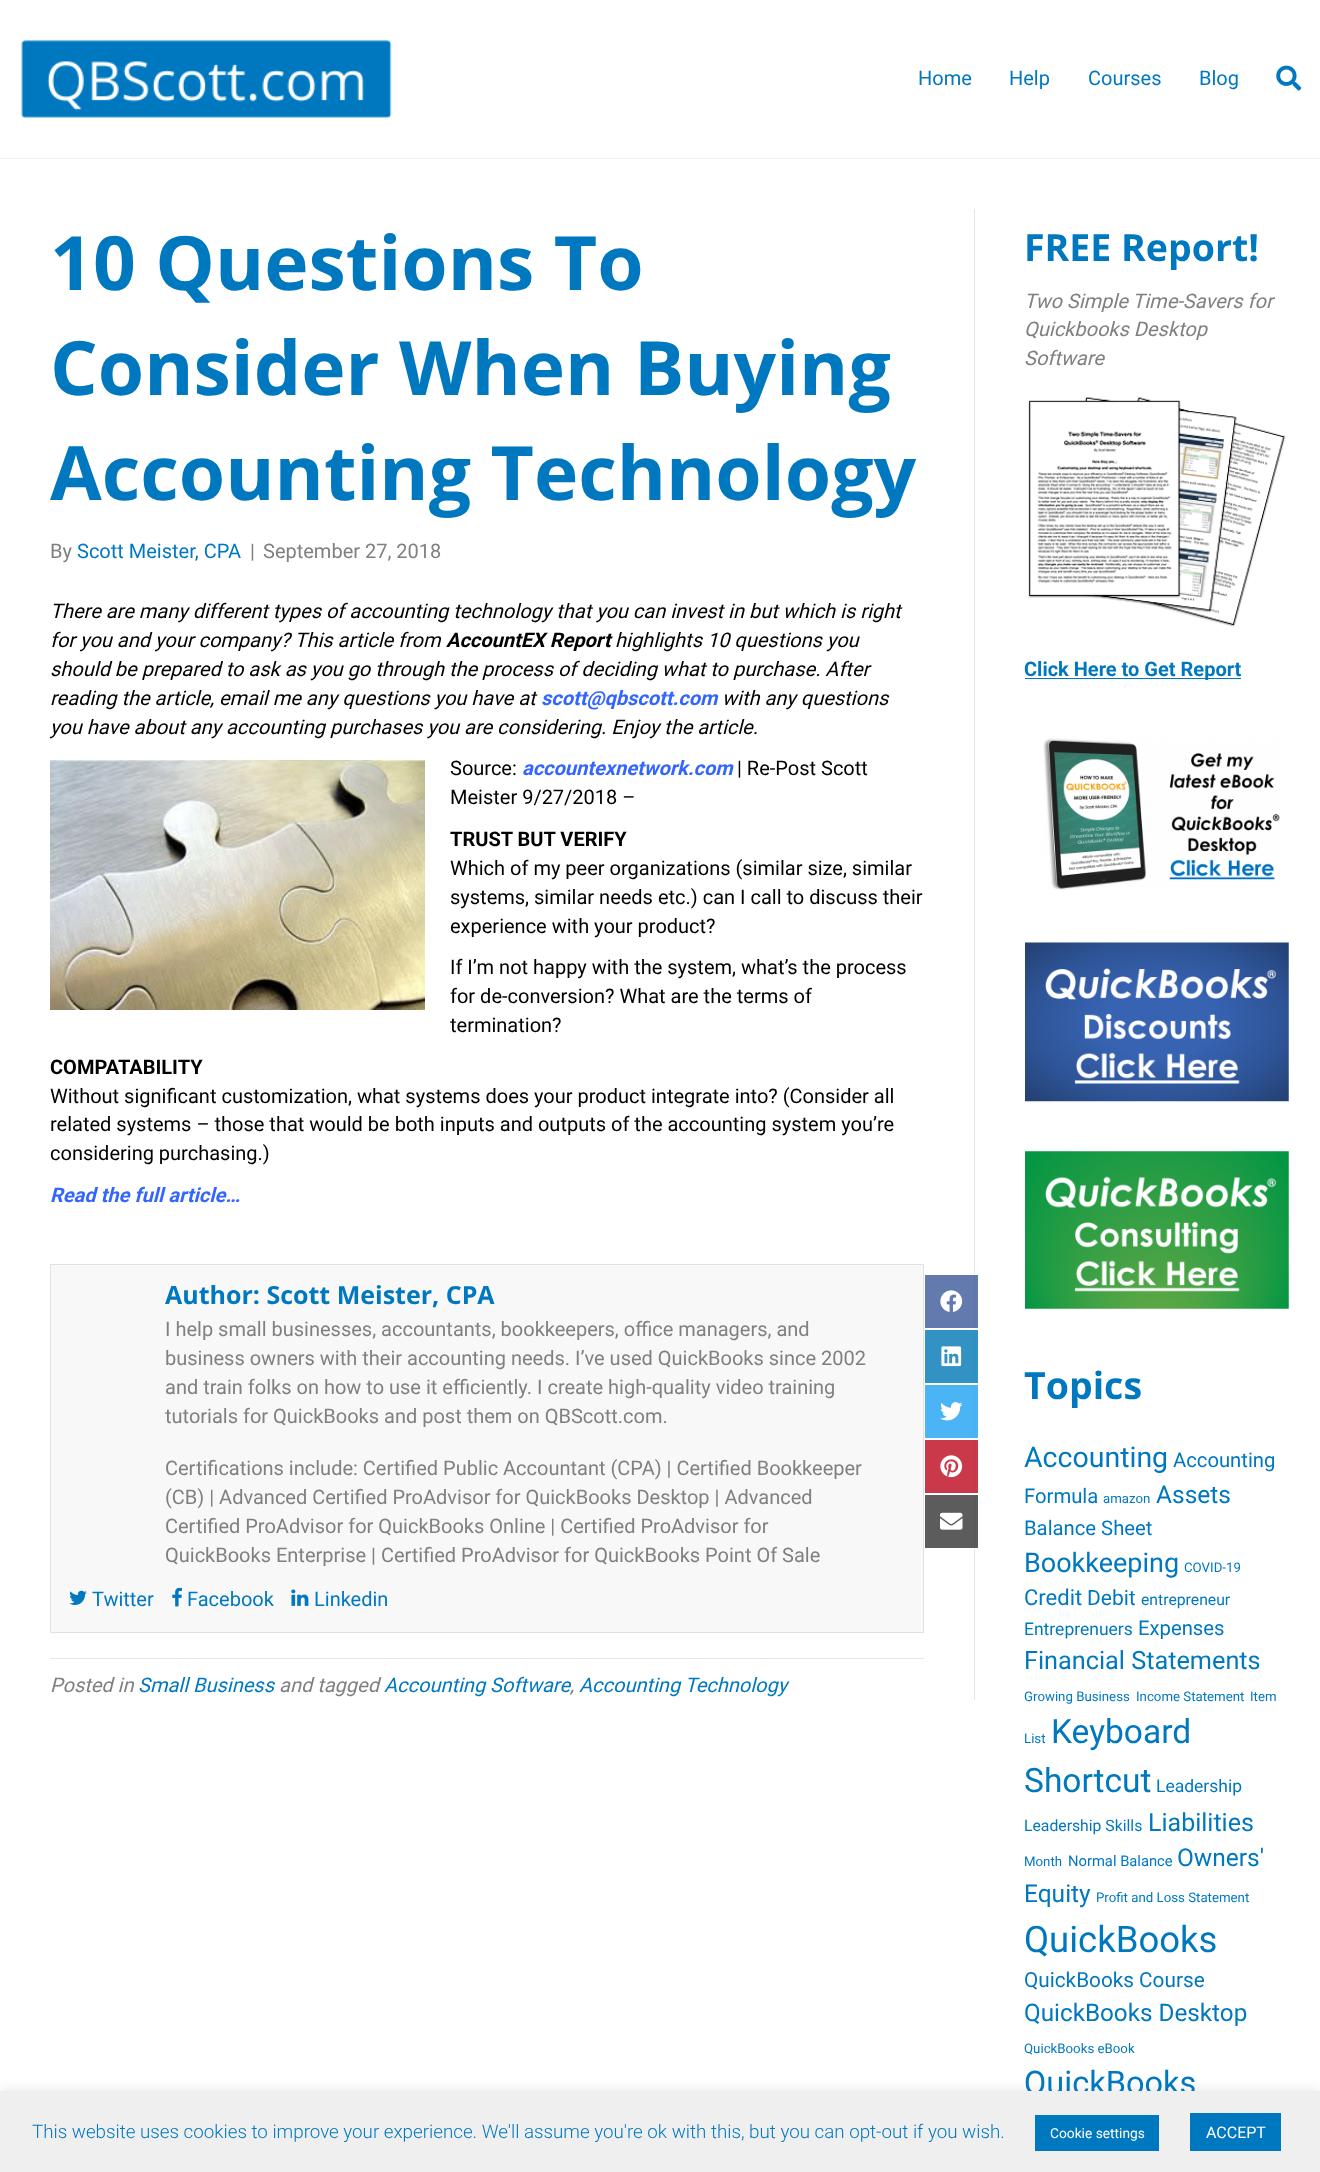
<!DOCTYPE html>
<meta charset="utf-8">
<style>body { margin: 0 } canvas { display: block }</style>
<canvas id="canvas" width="1320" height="2172"></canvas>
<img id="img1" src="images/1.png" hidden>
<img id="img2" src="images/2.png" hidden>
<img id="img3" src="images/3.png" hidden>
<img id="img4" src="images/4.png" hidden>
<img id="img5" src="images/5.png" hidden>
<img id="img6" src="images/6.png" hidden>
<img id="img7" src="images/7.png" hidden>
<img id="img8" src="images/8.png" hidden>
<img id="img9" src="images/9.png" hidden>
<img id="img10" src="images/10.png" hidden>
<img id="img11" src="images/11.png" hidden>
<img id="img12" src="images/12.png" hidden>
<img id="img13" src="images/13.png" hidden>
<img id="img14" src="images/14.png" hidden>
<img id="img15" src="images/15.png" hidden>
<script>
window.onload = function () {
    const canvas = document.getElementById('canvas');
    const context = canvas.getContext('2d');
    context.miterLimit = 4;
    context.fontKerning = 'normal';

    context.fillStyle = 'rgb(255, 255, 255)';
    context.fillRect(0, 0, 1320, 2172);
    context.fillStyle = 'rgb(92, 92, 92)';
    context.fillRect(925, 1495, 53, 53);
    context.fillStyle = 'rgb(202, 57, 73)';
    context.fillRect(925, 1440, 53, 53);
    context.fillStyle = 'rgb(74, 180, 245)';
    context.fillRect(925, 1385, 53, 53);
    context.fillStyle = 'rgb(51, 146, 196)';
    context.fillRect(925, 1330, 53, 53);
    context.fillStyle = 'rgb(98, 122, 173)';
    context.fillRect(925, 1275, 53, 53);
    context.fillStyle = 'rgb(238, 238, 238)';
    context.fillRect(0, 158, 1320, 1);
    context.drawImage(document.getElementById('img1'), 21, 39, 371, 79);
    context.drawImage(document.getElementById('img2'), 1276, 65, 26, 26);
    context.fillStyle = 'rgb(230, 230, 230)';
    context.fillRect(974, 209, 1, 1491);
    context.fillStyle = 'rgb(87, 87, 87)';
    context.fillRect(974, 1494, 1, 55);
    context.fillStyle = 'rgb(197, 52, 68)';
    context.fillRect(974, 1439, 1, 55);
    context.fillStyle = 'rgb(69, 175, 240)';
    context.fillRect(974, 1384, 1, 55);
    context.fillStyle = 'rgb(46, 141, 191)';
    context.fillRect(974, 1329, 1, 55);
    context.fillStyle = 'rgb(93, 117, 168)';
    context.fillRect(974, 1274, 1, 55);
    context.drawImage(document.getElementById('img3'), 50, 760, 375, 250);
    context.fillStyle = 'rgb(248, 248, 248)';
    context.beginPath();
    context.rect(50.5, 1264.5, 873, 368);
    context.fill();
    context.strokeStyle = 'rgb(225, 225, 225)';
    context.stroke();
    context.drawImage(document.getElementById('img4'), 69, 1590, 18, 15);
    context.drawImage(document.getElementById('img5'), 172, 1587, 10, 20);
    context.drawImage(document.getElementById('img6'), 291, 1589, 18, 17);
    context.strokeStyle = 'rgb(255, 255, 255)';
    context.strokeRect(924.5, 1274.5, 54, 54);
    context.drawImage(document.getElementById('img7'), 940, 1290, 23, 22);
    context.strokeRect(924.5, 1329.5, 54, 54);
    context.drawImage(document.getElementById('img8'), 941, 1346, 21, 21);
    context.strokeRect(924.5, 1384.5, 54, 54);
    context.drawImage(document.getElementById('img9'), 940, 1402, 23, 19);
    context.strokeRect(924.5, 1439.5, 54, 54);
    context.drawImage(document.getElementById('img10'), 940, 1455, 23, 23);
    context.strokeRect(924.5, 1494.5, 54, 54);
    context.drawImage(document.getElementById('img11'), 940, 1512, 23, 18);
    context.fillStyle = 'rgb(230, 230, 230)';
    context.fillRect(50, 1658, 874, 1);
    context.drawImage(document.getElementById('img12'), 1028, 397, 258, 230);
    context.fillStyle = 'rgb(0, 120, 192)';
    context.fillRect(1025, 678, 216, 1);
    context.drawImage(document.getElementById('img13'), 1043, 738, 237, 152);
    context.drawImage(document.getElementById('img14'), 1025, 942, 264, 160);
    context.drawImage(document.getElementById('img15'), 1025, 1151, 264, 158);
    context.fillStyle = 'rgba(172, 171, 171, 0.3)';
    context.filter = 'blur(6px)';
    context.beginPath();
    context.rect(0, 2090, 1320, 81);
    context.fill();
    context.filter = 'none';
    context.font = '20px Roboto';
    context.fillStyle = 'rgb(0, 120, 192)';
    context.fillText('Home', 918, 85);
    context.fillText('Help', 1009, 85);
    context.fillText('Courses', 1088, 85);
    context.fillText('Blog', 1199, 85);
    context.font = 'bold 75px Open Sans';
    context.fillText('10 Questions To', 50, 290);
    context.fillText('Consider When Buying', 50, 395);
    context.fillText('Accounting Technology', 50, 500);
    context.font = '20px Roboto';
    context.fillStyle = 'rgb(128, 128, 128)';
    context.fillText('By', 50, 558);
    context.fillStyle = 'rgb(0, 120, 192)';
    context.fillText('Scott Meister, CPA', 77, 558);
    context.fillStyle = 'rgb(128, 128, 128)';
    context.fillText('|', 250, 558);
    context.fillText('September 27, 2018', 263, 558);
    context.font = 'italic 20px Roboto';
    context.fillStyle = 'rgb(0, 0, 0)';
    context.fillText('There are many different types of accounting technology that you can invest in but which is right', 50, 618);
    context.fillText('for you and your company? This article from', 50, 647);
    context.font = 'italic bold 20px Roboto';
    context.fillText('AccountEX Report', 446, 647);
    context.font = 'italic 20px Roboto';
    context.fillText('highlights 10 questions you', 615, 647);
    context.fillText('should be prepared to ask as you go through the process of deciding what to purchase. After', 50, 676);
    context.fillText('reading the article, email me any questions you have at', 50, 705);
    context.font = 'italic bold 20px Roboto';
    context.fillStyle = 'rgb(51, 102, 255)';
    context.fillText('scott@qbscott.com', 541, 705);
    context.font = 'italic 20px Roboto';
    context.fillStyle = 'rgb(0, 0, 0)';
    context.fillText('with any questions', 722, 705);
    context.fillText('you have about any accounting purchases you are considering. Enjoy the article.', 50, 734);
    context.font = '20px Roboto';
    context.fillText('Source:', 450, 775);
    context.font = 'italic bold 20px Roboto';
    context.fillStyle = 'rgb(51, 102, 255)';
    context.fillText('accountexnetwork.com', 522, 775);
    context.font = '20px Roboto';
    context.fillStyle = 'rgb(0, 0, 0)';
    context.fillText('| Re-Post Scott', 737, 775);
    context.fillText('Meister 9/27/2018 –', 450, 804);
    context.font = 'bold 20px Roboto';
    context.fillText('TRUST BUT VERIFY', 450, 846);
    context.font = '20px Roboto';
    context.fillText('Which of my peer organizations (similar size, similar', 450, 875);
    context.fillText('systems, similar needs etc.) can I call to discuss their', 450, 904);
    context.fillText('experience with your product?', 450, 933);
    context.fillText('If I’m not happy with the system, what’s the process', 450, 974);
    context.fillText('for de-conversion? What are the terms of', 450, 1003);
    context.fillText('termination?', 450, 1032);
    context.font = 'bold 20px Roboto';
    context.fillText('COMPATABILITY', 50, 1074);
    context.font = '20px Roboto';
    context.fillText('Without significant customization, what systems does your product integrate into? (Consider all', 50, 1103);
    context.fillText('related systems – those that would be both inputs and outputs of the accounting system you’re', 50, 1131);
    context.fillText('considering purchasing.)', 50, 1160);
    context.font = 'italic bold 20px Roboto';
    context.fillStyle = 'rgb(51, 102, 255)';
    context.fillText('Read the full article…', 50, 1202);
    context.font = 'bold 25px Open Sans';
    context.fillStyle = 'rgb(0, 120, 192)';
    context.fillText('Author: Scott Meister, CPA', 165, 1304);
    context.font = '20px Roboto';
    context.fillStyle = 'rgb(128, 128, 128)';
    context.fillText('I help small businesses, accountants, bookkeepers, office managers, and', 165, 1336);
    context.fillText('business owners with their accounting needs. I’ve used QuickBooks since 2002', 165, 1365);
    context.fillText('and train folks on how to use it efficiently. I create high-quality video training', 165, 1394);
    context.fillText('tutorials for QuickBooks and post them on QBScott.com.', 165, 1423);
    context.fillText('Certifications include: Certified Public Accountant (CPA) | Certified Bookkeeper', 165, 1475);
    context.fillText('(CB) | Advanced Certified ProAdvisor for QuickBooks Desktop | Advanced', 165, 1504);
    context.fillText('Certified ProAdvisor for QuickBooks Online | Certified ProAdvisor for', 165, 1533);
    context.fillText('QuickBooks Enterprise | Certified ProAdvisor for QuickBooks Point Of Sale', 165, 1562);
    context.fillStyle = 'rgb(0, 120, 192)';
    context.fillText('Twitter', 92, 1606);
    context.fillText('Facebook', 187, 1606);
    context.fillText('Linkedin', 314, 1606);
    context.font = 'italic 20px Roboto';
    context.fillStyle = 'rgb(128, 128, 128)';
    context.fillText('Posted in', 50, 1692);
    context.fillStyle = 'rgb(0, 120, 192)';
    context.fillText('Small Business', 138, 1692);
    context.fillStyle = 'rgb(128, 128, 128)';
    context.fillText('and tagged', 279, 1692);
    context.fillStyle = 'rgb(0, 120, 192)';
    context.fillText('Accounting Software', 384, 1692);
    context.fillText('Accounting Technology', 579, 1692);
    context.fillStyle = 'rgb(128, 128, 128)';
    context.fillText(',', 570, 1692);
    context.font = 'bold 37.5px Open Sans';
    context.fillStyle = 'rgb(0, 120, 192)';
    context.fillText('FREE Report!', 1024, 261);
    context.font = 'italic 20px Roboto';
    context.fillStyle = 'rgb(128, 128, 128)';
    context.fillText('Two Simple Time-Savers for', 1024, 308);
    context.fillText('Quickbooks Desktop', 1024, 336);
    context.fillText('Software', 1024, 365);
    context.font = 'bold 20px Roboto';
    context.fillStyle = 'rgb(0, 120, 192)';
    context.fillText('Click Here to Get Report', 1024, 676);
    context.font = 'bold 37.5px Open Sans';
    context.fillText('Topics', 1024, 1399);
    context.font = '28.5px Roboto';
    context.fillText('Accounting', 1024, 1467);
    context.font = '20.25px Roboto';
    context.fillText('Accounting', 1173, 1467);
    context.fillText('Formula', 1024, 1503);
    context.font = '13.25px Roboto';
    context.fillText('amazon', 1103, 1503);
    context.font = '24.5px Roboto';
    context.fillText('Assets', 1156, 1503);
    context.font = '20.25px Roboto';
    context.fillText('Balance Sheet', 1024, 1535);
    context.font = '27px Roboto';
    context.fillText('Bookkeeping', 1024, 1572);
    context.font = '13.25px Roboto';
    context.fillText('COVID-19', 1184, 1572);
    context.font = '22px Roboto';
    context.fillText('Credit', 1024, 1605);
    context.font = '21px Roboto';
    context.fillText('Debit', 1087, 1605);
    context.font = '15.75px Roboto';
    context.fillText('entrepreneur', 1141, 1605);
    context.font = '17.5px Roboto';
    context.fillText('Entreprenuers', 1024, 1635);
    context.font = '20.25px Roboto';
    context.fillText('Expenses', 1138, 1635);
    context.font = '25.25px Roboto';
    context.fillText('Financial Statements', 1024, 1669);
    context.font = '13.25px Roboto';
    context.fillText('Growing Business', 1024, 1701);
    context.fillText('Income Statement', 1136, 1701);
    context.fillText('Item', 1250, 1701);
    context.fillText('List', 1024, 1743);
    context.font = '33.5px Roboto';
    context.fillText('Keyboard', 1051, 1743);
    context.fillText('Shortcut', 1024, 1792);
    context.font = '17.5px Roboto';
    context.fillText('Leadership', 1156, 1792);
    context.font = '15.75px Roboto';
    context.fillText('Leadership Skills', 1024, 1831);
    context.font = '25px Roboto';
    context.fillText('Liabilities', 1148, 1831);
    context.font = '13.25px Roboto';
    context.fillText('Month', 1024, 1866);
    context.font = '14.75px Roboto';
    context.fillText('Normal Balance', 1068, 1866);
    context.font = '24.5px Roboto';
    context.fillText('Owners\'', 1177, 1866);
    context.fillText('Equity', 1024, 1902);
    context.font = '13.25px Roboto';
    context.fillText('Profit and Loss Statement', 1096, 1902);
    context.font = '36.5px Roboto';
    context.fillText('QuickBooks', 1024, 1952);
    context.font = '20.75px Roboto';
    context.fillText('QuickBooks Course', 1024, 1987);
    context.font = '24.25px Roboto';
    context.fillText('QuickBooks Desktop', 1024, 2021);
    context.font = '13.25px Roboto';
    context.fillText('QuickBooks eBook', 1024, 2053);
    context.font = '32.5px Roboto';
    context.fillText('QuickBooks', 1024, 2094);
    context.fillStyle = 'rgb(239, 239, 239)';
    context.fillRect(0, 2091, 1320, 81);
    context.font = '300 18.75px Roboto';
    context.fillStyle = 'rgb(0, 120, 192)';
    context.fillText('This website uses cookies to improve your experience. We\'ll assume you\'re ok with this, but you can opt-out if you wish.', 32, 2138);
    context.fillRect(1035, 2115, 124, 36);
    context.font = '13.75px Roboto';
    context.fillStyle = 'rgb(255, 255, 255)';
    context.fillText('Cookie settings', 1050, 2138);
    context.fillStyle = 'rgb(0, 120, 192)';
    context.fillRect(1190, 2113, 91, 38);
    context.font = '16px Roboto';
    context.fillStyle = 'rgb(255, 255, 255)';
    context.fillText('ACCEPT', 1206, 2138);
};
</script>
